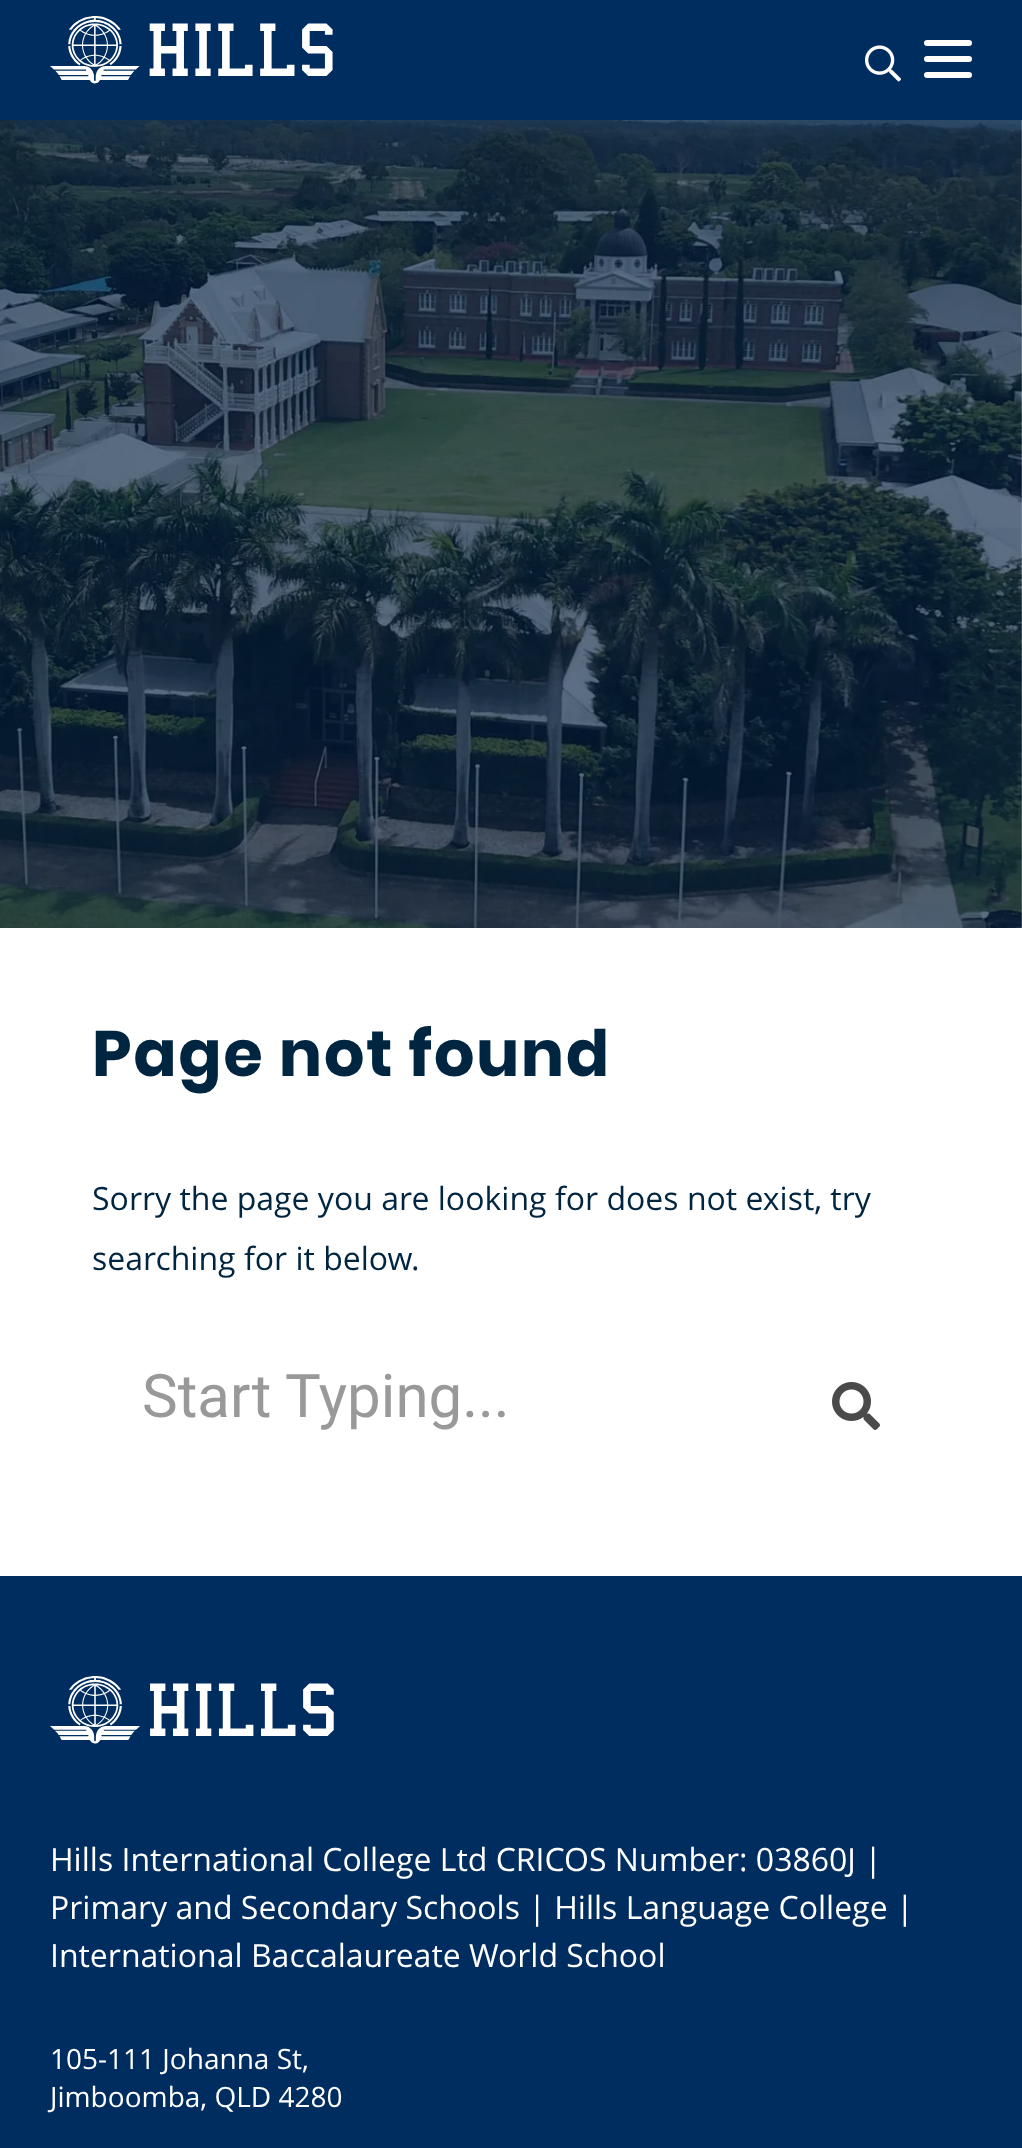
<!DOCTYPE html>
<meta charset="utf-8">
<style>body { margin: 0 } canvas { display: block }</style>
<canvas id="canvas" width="1022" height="2148"></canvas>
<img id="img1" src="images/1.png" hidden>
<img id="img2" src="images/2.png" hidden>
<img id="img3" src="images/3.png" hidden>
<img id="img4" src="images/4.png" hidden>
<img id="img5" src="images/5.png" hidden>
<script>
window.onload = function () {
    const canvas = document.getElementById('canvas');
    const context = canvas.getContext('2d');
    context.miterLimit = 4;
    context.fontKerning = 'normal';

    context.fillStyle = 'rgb(255, 255, 255)';
    context.fillRect(0, 0, 1022, 2148);
    context.fillStyle = 'rgb(0, 45, 95)';
    context.fillRect(0, 0, 1022, 120);
    context.drawImage(document.getElementById('img1'), 50, 16, 283, 68);
    context.drawImage(document.getElementById('img2'), 865, 45, 36, 37);
    context.fillStyle = 'rgb(255, 255, 255)';
    context.beginPath();
    context.roundRect(924, 40, 48, 6, 3);
    context.fill();
    context.beginPath();
    context.roundRect(924, 56, 48, 6, 3);
    context.fill();
    context.beginPath();
    context.roundRect(924, 72, 48, 6, 3);
    context.fill();
    context.drawImage(document.getElementById('img3'), 0, 120, 1022, 808);
    context.drawImage(document.getElementById('img4'), 832, 1382, 48, 48);
    context.fillStyle = 'rgb(0, 45, 95)';
    context.fillRect(0, 1576, 1022, 572);
    context.drawImage(document.getElementById('img5'), 50, 1676, 284, 68);
    context.letterSpacing = '1.6px';
    context.font = 'bold 64px Poppins';
    context.fillStyle = 'rgb(0, 37, 64)';
    context.fillText('Page not found', 92, 1076);
    context.letterSpacing = '0px';
    context.font = '32px Open Sans';
    context.fillText('Sorry the page you are looking for does not exist, try', 92, 1210);
    context.fillText('searching for it below.', 92, 1270);
    context.font = '60px Roboto';
    context.fillStyle = 'rgb(153, 153, 153)';
    context.fillText('Start Typing...', 142, 1417);
    context.font = '32px Open Sans';
    context.fillStyle = 'rgb(255, 255, 255)';
    context.fillText('Hills International College Ltd CRICOS Number: 03860J |', 50, 1871);
    context.fillText('Primary and Secondary Schools | Hills Language College |', 50, 1919);
    context.fillText('International Baccalaureate World School', 50, 1967);
    context.font = '28px Open Sans';
    context.fillText('105-111 Johanna St,', 50, 2069);
    context.fillText('Jimboomba, QLD 4280', 50, 2107);
};
</script>
